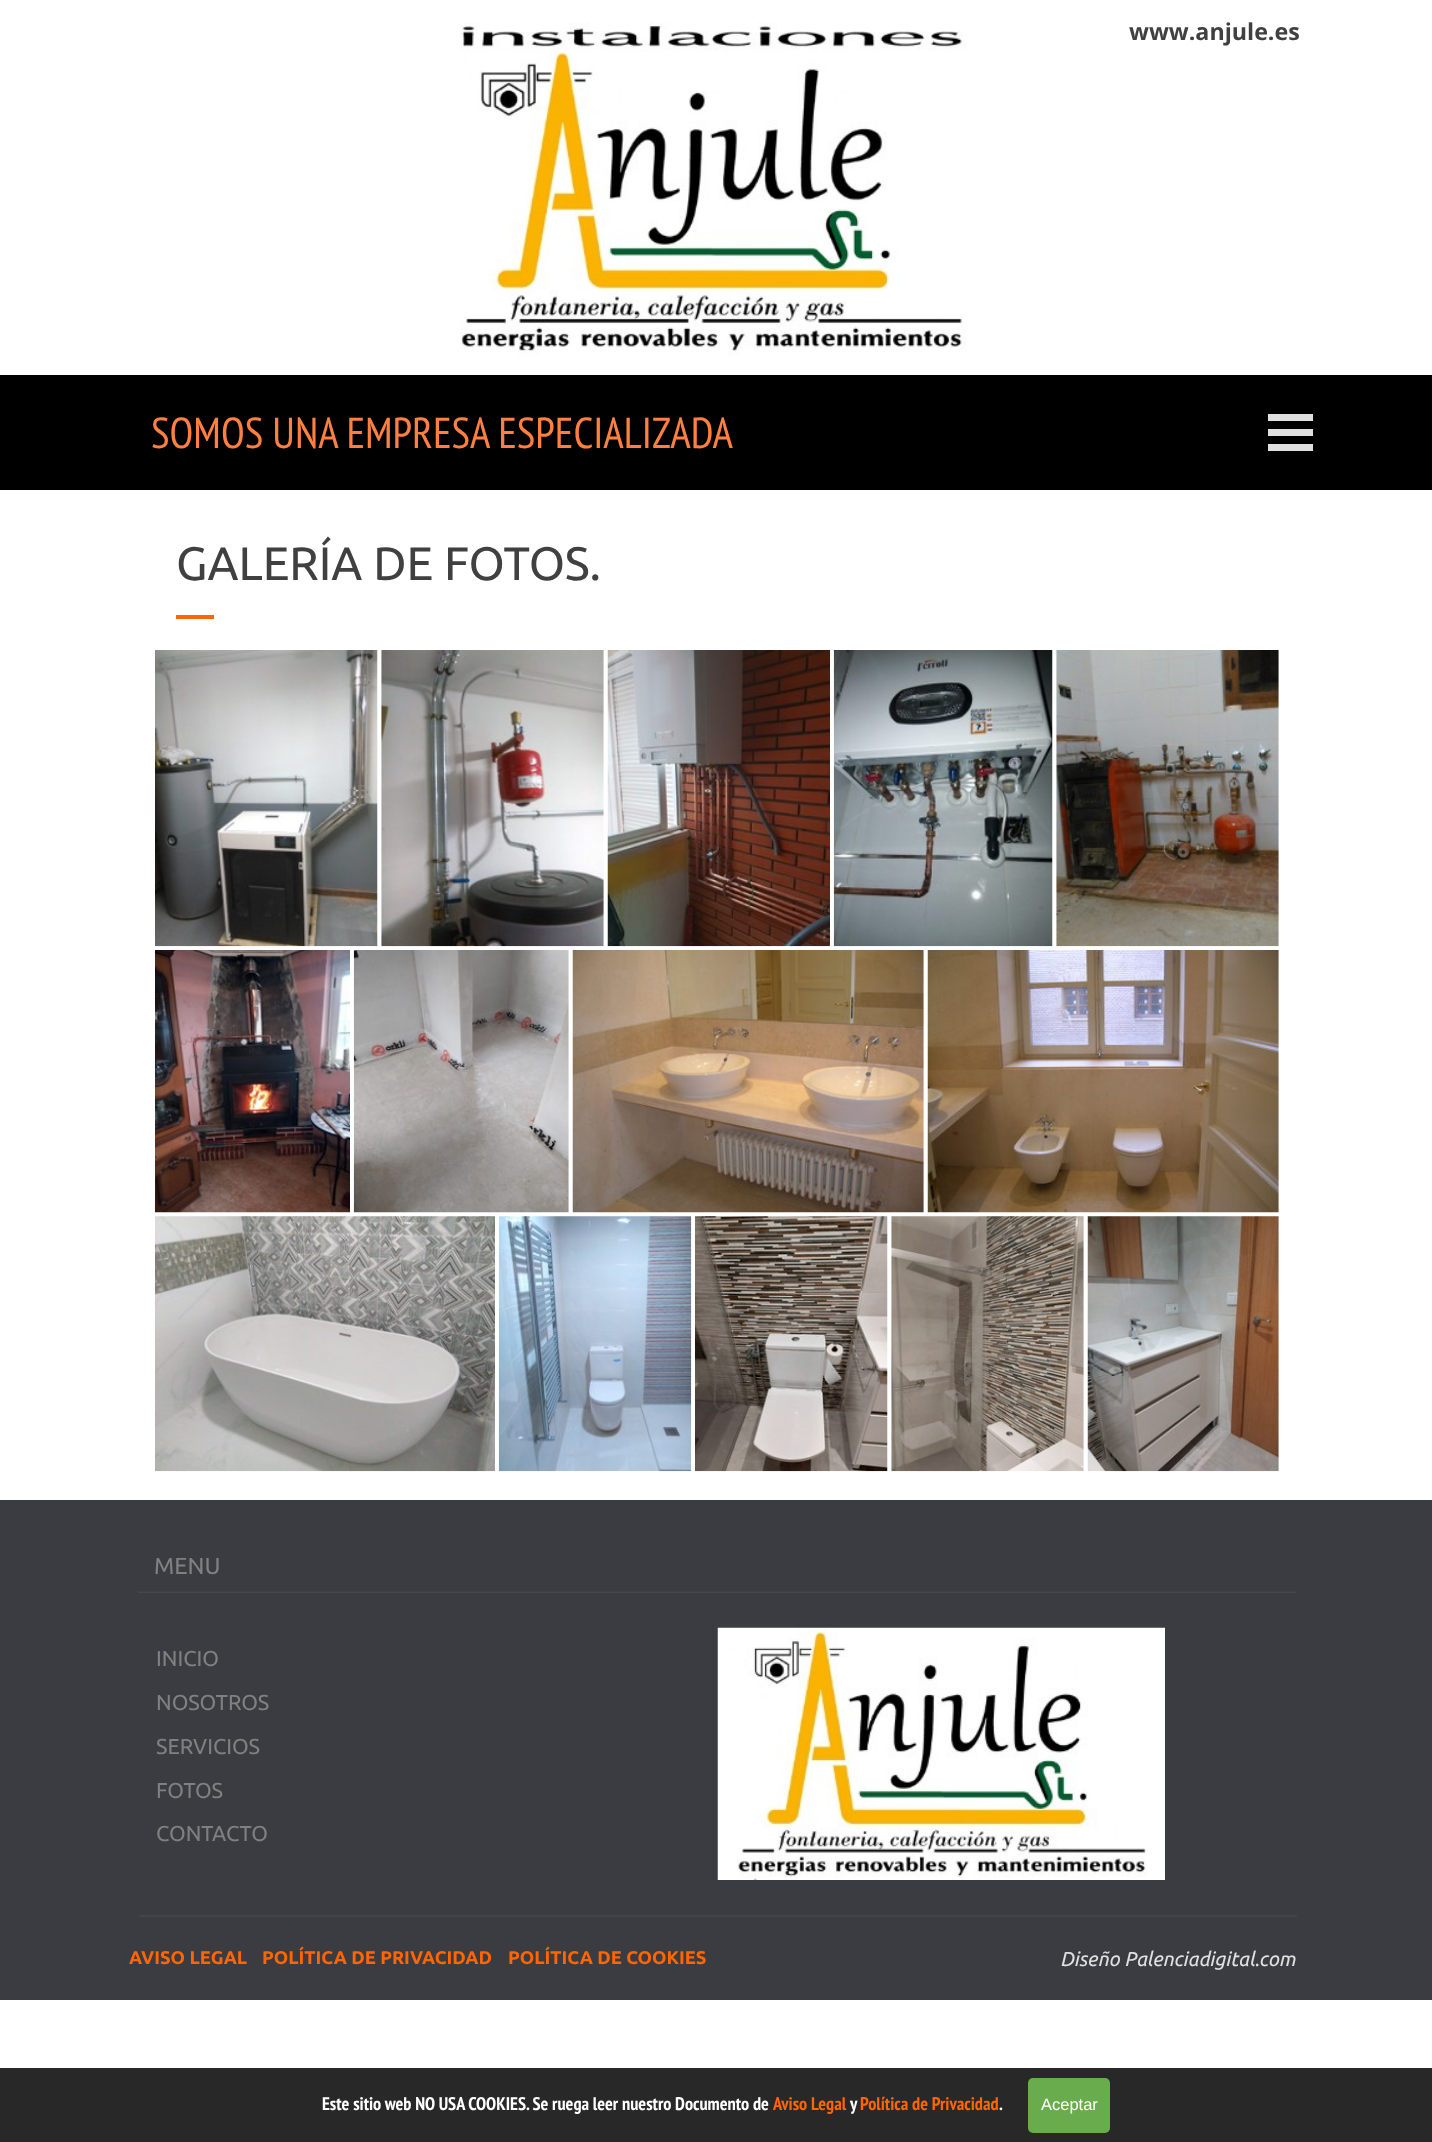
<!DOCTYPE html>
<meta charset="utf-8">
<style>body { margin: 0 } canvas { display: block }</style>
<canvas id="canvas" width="1432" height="2142"></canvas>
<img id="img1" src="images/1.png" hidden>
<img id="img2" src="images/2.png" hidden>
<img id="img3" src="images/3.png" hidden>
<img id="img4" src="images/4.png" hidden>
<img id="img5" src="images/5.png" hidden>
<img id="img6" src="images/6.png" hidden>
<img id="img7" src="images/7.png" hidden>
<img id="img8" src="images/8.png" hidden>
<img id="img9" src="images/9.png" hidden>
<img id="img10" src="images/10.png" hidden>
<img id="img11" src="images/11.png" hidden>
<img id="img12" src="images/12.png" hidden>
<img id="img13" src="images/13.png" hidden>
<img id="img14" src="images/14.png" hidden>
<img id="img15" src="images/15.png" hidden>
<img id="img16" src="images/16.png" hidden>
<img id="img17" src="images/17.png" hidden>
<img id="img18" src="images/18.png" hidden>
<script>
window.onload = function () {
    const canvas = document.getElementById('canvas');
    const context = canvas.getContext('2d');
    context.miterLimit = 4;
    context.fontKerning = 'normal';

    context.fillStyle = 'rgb(255, 255, 255)';
    context.fillRect(0, 0, 1432, 2142);
    context.drawImage(document.getElementById('img1'), 460, 22, 506, 334);
    context.fillStyle = 'rgb(0, 0, 0)';
    context.fillRect(0, 375, 1432, 115);
    context.fillStyle = 'rgb(224, 224, 224)';
    context.fillRect(1268, 414, 45, 7);
    context.fillRect(1268, 429, 45, 7);
    context.fillRect(1268, 444, 45, 7);
    context.fillStyle = 'rgb(255, 101, 1)';
    context.fillRect(176, 615, 38, 4);
    context.drawImage(document.getElementById('img2'), 155, 650, 223, 297);
    context.drawImage(document.getElementById('img3'), 381, 650, 223, 297);
    context.drawImage(document.getElementById('img4'), 607, 650, 223, 297);
    context.drawImage(document.getElementById('img5'), 833, 650, 220, 297);
    context.drawImage(document.getElementById('img6'), 1056, 650, 223, 297);
    context.drawImage(document.getElementById('img7'), 155, 950, 195, 263);
    context.drawImage(document.getElementById('img8'), 353, 950, 216, 263);
    context.drawImage(document.getElementById('img9'), 572, 950, 352, 263);
    context.drawImage(document.getElementById('img10'), 927, 950, 352, 263);
    context.drawImage(document.getElementById('img11'), 155, 1216, 340, 256);
    context.drawImage(document.getElementById('img12'), 498, 1216, 194, 256);
    context.drawImage(document.getElementById('img13'), 695, 1216, 193, 256);
    context.drawImage(document.getElementById('img14'), 891, 1216, 193, 256);
    context.drawImage(document.getElementById('img15'), 1087, 1216, 192, 256);
    context.fillStyle = 'rgb(58, 60, 65)';
    context.fillRect(0, 1500, 1432, 500);
    context.drawImage(document.getElementById('img16'), 138, 1591, 1158, 2);
    context.drawImage(document.getElementById('img17'), 717, 1627, 448, 253);
    context.drawImage(document.getElementById('img18'), 139, 1915, 1158, 2);
    context.fillStyle = 'rgb(40, 40, 40)';
    context.fillRect(0, 2068, 1432, 74);
    context.fillStyle = 'rgb(105, 172, 77)';
    context.beginPath();
    context.roundRect(1028, 2078, 82, 55, 5);
    context.fill();
    context.font = 'bold 23.25px Open Sans';
    context.fillStyle = 'rgb(64, 64, 64)';
    context.fillText('www.anjule.es', 1129, 40);
    context.font = '43.3px PT Sans Narrow';
    context.fillStyle = 'rgb(255, 128, 64)';
    context.fillText('SOMOS UNA EMPRESA ESPECIALIZADA', 151, 448);
    context.font = '46.75px Ubuntu';
    context.fillStyle = 'rgb(64, 64, 64)';
    context.fillText('GALERÍA DE FOTOS.', 176, 580);
    context.font = '23.25px Ubuntu';
    context.fillStyle = 'rgb(128, 128, 128)';
    context.fillText('MENU', 154, 1574);
    context.font = '21.5px Ubuntu';
    context.fillText('INICIO', 156, 1666);
    context.fillText('NOSOTROS', 156, 1710);
    context.fillText('SERVICIOS', 156, 1754);
    context.fillText('FOTOS', 156, 1798);
    context.fillText('CONTACTO', 156, 1841);
    context.font = 'bold 18.3px Ubuntu';
    context.fillStyle = 'rgb(255, 101, 1)';
    context.fillText('AVISO LEGAL', 129, 1964);
    context.fillText('POLÍTICA DE PRIVACIDAD', 262, 1964);
    context.fillText('POLÍTICA DE COOKIES', 508, 1964);
    context.font = 'italic 20px Ubuntu';
    context.fillStyle = 'rgb(224, 224, 224)';
    context.fillText('Diseño Palenciadigital.com', 1060, 1966);
    context.font = 'bold 18.3px PT Sans Narrow';
    context.fillStyle = 'rgb(255, 255, 255)';
    context.fillText('Este sitio web NO USA COOKIES. Se ruega leer nuestro Documento de', 322, 2110);
    context.fillStyle = 'rgb(255, 101, 1)';
    context.fillText('Aviso Legal', 773, 2110);
    context.fillStyle = 'rgb(255, 255, 255)';
    context.fillText('y', 850, 2110);
    context.fillStyle = 'rgb(255, 101, 1)';
    context.fillText('Política de Privacidad', 860, 2110);
    context.fillStyle = 'rgb(255, 255, 255)';
    context.fillText('.', 999, 2110);
    context.font = '16.5px Liberation Sans';
    context.fillText('Aceptar', 1041, 2110);
};
</script>
